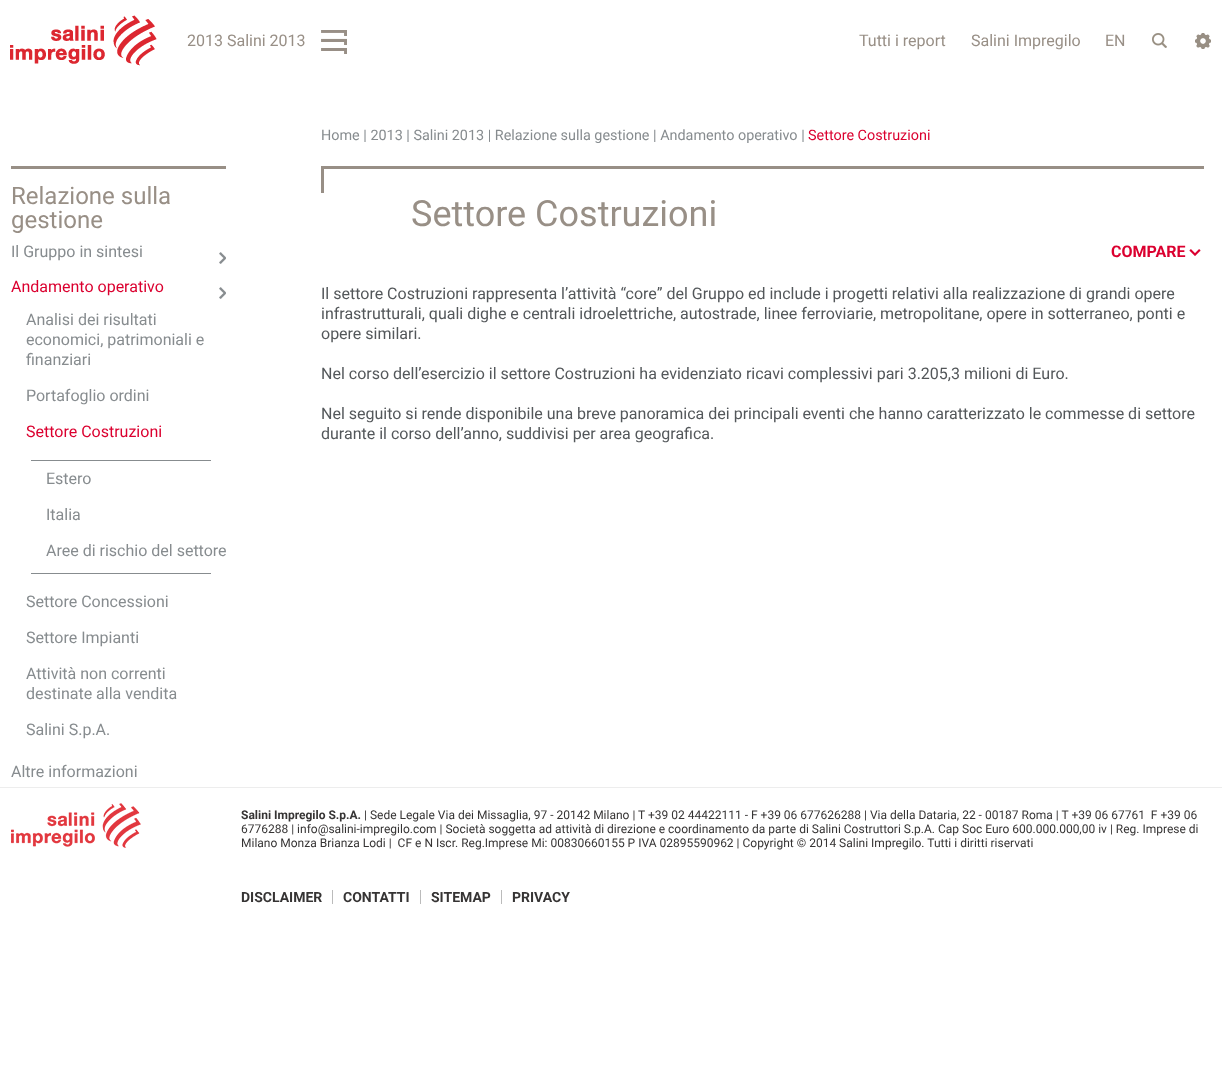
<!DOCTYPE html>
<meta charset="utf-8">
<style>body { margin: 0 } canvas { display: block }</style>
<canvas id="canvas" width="1222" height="1079"></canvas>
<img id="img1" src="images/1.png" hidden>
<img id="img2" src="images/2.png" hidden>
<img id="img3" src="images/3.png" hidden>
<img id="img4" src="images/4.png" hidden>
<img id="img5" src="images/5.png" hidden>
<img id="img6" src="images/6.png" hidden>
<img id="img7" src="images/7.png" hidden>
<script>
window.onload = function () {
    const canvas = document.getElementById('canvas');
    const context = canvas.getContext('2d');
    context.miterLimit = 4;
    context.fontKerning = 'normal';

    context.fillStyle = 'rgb(255, 255, 255)';
    context.fillRect(0, 0, 1222, 1079);
    context.drawImage(document.getElementById('img1'), 10, 15, 147, 51);
    context.drawImage(document.getElementById('img2'), 321, 30, 26, 24);
    context.drawImage(document.getElementById('img3'), 1152, 33, 15, 15);
    context.drawImage(document.getElementById('img4'), 1195, 33, 16, 16);
    context.fillStyle = 'rgb(152, 143, 134)';
    context.fillRect(11, 166, 215, 3);
    context.drawImage(document.getElementById('img5'), 219, 252, 7, 12);
    context.drawImage(document.getElementById('img5'), 219, 287, 7, 12);
    context.fillStyle = 'rgb(135, 140, 143)';
    context.fillRect(31, 460, 180, 1);
    context.fillRect(31, 573, 180, 1);
    context.fillStyle = 'rgb(152, 143, 134)';
    context.fillRect(321, 166, 883, 3);
    context.fillRect(321, 166, 3, 27);
    context.drawImage(document.getElementById('img6'), 1189, 249, 12, 7);
    context.fillStyle = 'rgb(237, 237, 237)';
    context.fillRect(0, 787, 1222, 1);
    context.drawImage(document.getElementById('img7'), 11, 803, 130, 45);
    context.fillStyle = 'rgb(187, 187, 187)';
    context.fillRect(332, 890, 1, 14);
    context.fillRect(420, 890, 1, 14);
    context.fillRect(501, 890, 1, 14);
    context.font = '16px Roboto';
    context.fillStyle = 'rgb(152, 143, 134)';
    context.fillText('2013 Salini 2013', 187, 46);
    context.fillText('Tutti i report', 859, 46);
    context.fillText('Salini Impregilo', 971, 46);
    context.fillText('EN', 1105, 46);
    context.font = '14.4px Roboto';
    context.fillStyle = 'rgb(135, 140, 143)';
    context.fillText('Home | 2013 | Salini 2013 | Relazione sulla gestione | Andamento operativo |', 321, 140);
    context.fillStyle = 'rgb(219, 0, 47)';
    context.fillText('Settore Costruzioni', 808, 140);
    context.font = '24px Roboto';
    context.fillStyle = 'rgb(152, 143, 134)';
    context.fillText('Relazione sulla', 11, 204);
    context.fillText('gestione', 11, 228);
    context.font = '16px Roboto';
    context.fillStyle = 'rgb(135, 140, 143)';
    context.fillText('Il Gruppo in sintesi', 11, 257);
    context.fillStyle = 'rgb(219, 0, 47)';
    context.fillText('Andamento operativo', 11, 292);
    context.fillStyle = 'rgb(135, 140, 143)';
    context.fillText('Analisi dei risultati', 26, 325);
    context.fillText('economici, patrimoniali e', 26, 345);
    context.fillText('finanziari', 26, 365);
    context.fillText('Portafoglio ordini', 26, 401);
    context.fillStyle = 'rgb(219, 0, 47)';
    context.fillText('Settore Costruzioni', 26, 437);
    context.fillStyle = 'rgb(135, 140, 143)';
    context.fillText('Estero', 46, 484);
    context.fillText('Italia', 46, 520);
    context.fillText('Aree di rischio del settore', 46, 556);
    context.fillText('Settore Concessioni', 26, 607);
    context.fillText('Settore Impianti', 26, 643);
    context.fillText('Attività non correnti', 26, 679);
    context.fillText('destinate alla vendita', 26, 699);
    context.fillText('Salini S.p.A.', 26, 735);
    context.fillText('Altre informazioni', 11, 777);
    context.font = '36px Roboto';
    context.fillStyle = 'rgb(152, 143, 134)';
    context.fillText('Settore Costruzioni', 411, 226);
    context.font = 'bold 16px Roboto';
    context.fillStyle = 'rgb(219, 0, 47)';
    context.fillText('COMPARE', 1111, 257);
    context.font = '16px Roboto';
    context.fillStyle = 'rgb(83, 87, 90)';
    context.fillText('Il settore Costruzioni rappresenta l’attività “core” del Gruppo ed include i progetti relativi alla realizzazione di grandi opere', 321, 299);
    context.fillText('infrastrutturali, quali dighe e centrali idroelettriche, autostrade, linee ferroviarie, metropolitane, opere in sotterraneo, ponti e', 321, 319);
    context.fillText('opere similari.', 321, 339);
    context.fillText('Nel corso dell’esercizio il settore Costruzioni ha evidenziato ricavi complessivi pari 3.205,3 milioni di Euro.', 321, 379);
    context.fillText('Nel seguito si rende disponibile una breve panoramica dei principali eventi che hanno caratterizzato le commesse di settore', 321, 419);
    context.fillText('durante il corso dell’anno, suddivisi per area geografica.', 321, 439);
    context.font = 'bold 12px Roboto';
    context.fillStyle = 'rgb(54, 52, 52)';
    context.fillText('Salini Impregilo S.p.A.', 241, 819);
    context.font = '12px Roboto';
    context.fillText('| Sede Legale Via dei Missaglia, 97 - 20142 Milano | T +39 02 44422111 - F +39 06 677626288 | Via della Dataria, 22 - 00187 Roma | T +39 06 67761  F +39 06', 364, 819);
    context.fillText('6776288 | info@salini-impregilo.com | Società soggetta ad attività di direzione e coordinamento da parte di Salini Costruttori S.p.A. Cap Soc Euro 600.000.000,00 iv | Reg. Imprese di', 241, 833);
    context.fillText('Milano Monza Brianza Lodi |  CF e N Iscr. Reg.Imprese Mi: 00830660155 P IVA 02895590962 | Copyright © 2014 Salini Impregilo. Tutti i diritti riservati', 241, 847);
    context.font = 'bold 14px Roboto';
    context.fillText('DISCLAIMER', 241, 902);
    context.fillText('CONTATTI', 343, 902);
    context.fillText('SITEMAP', 431, 902);
    context.fillText('PRIVACY', 512, 902);
};
</script>
